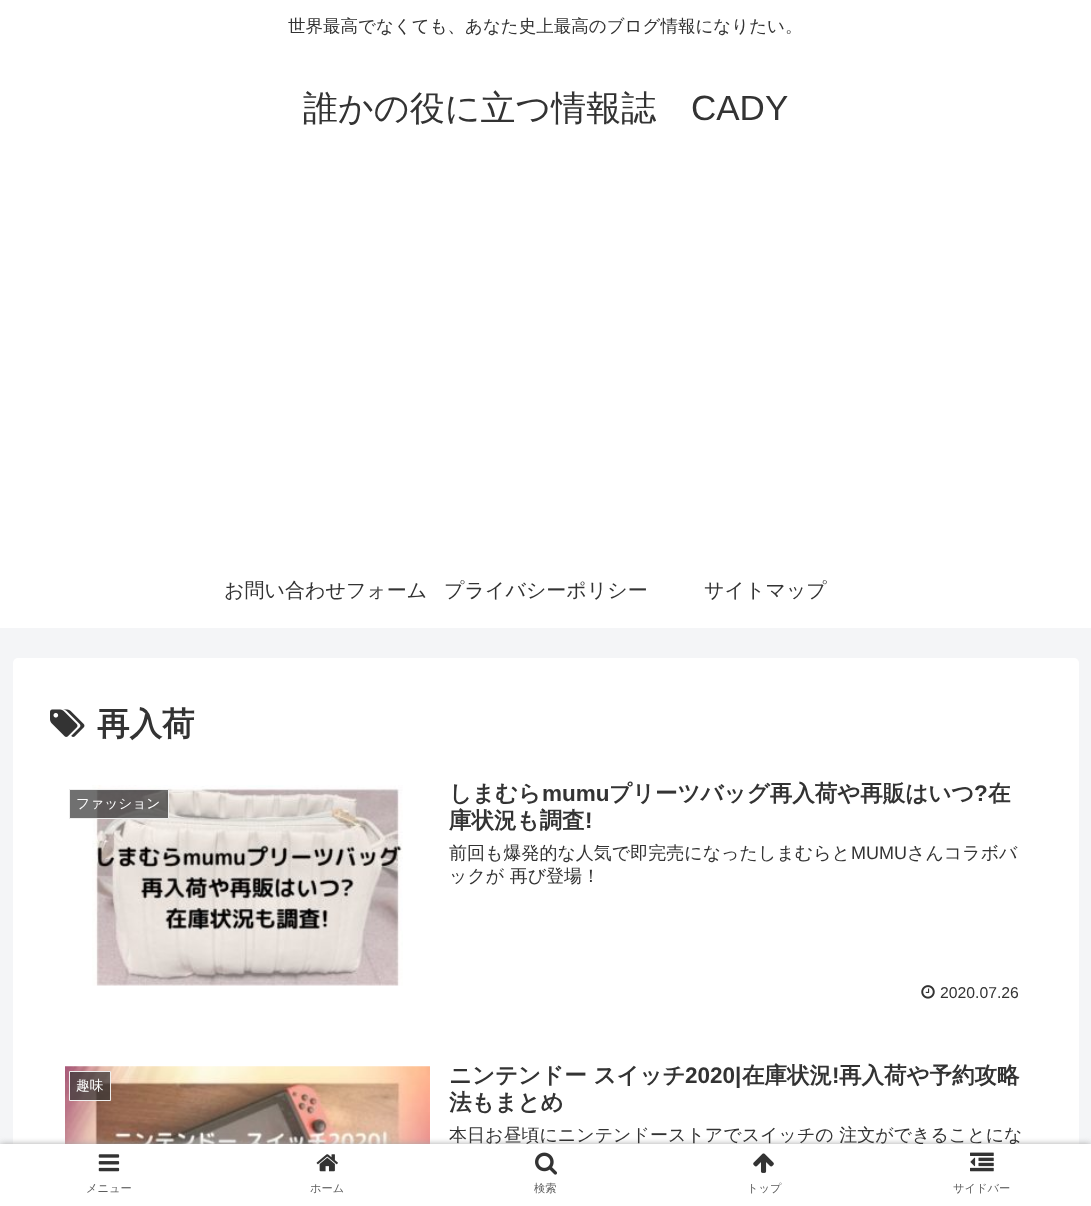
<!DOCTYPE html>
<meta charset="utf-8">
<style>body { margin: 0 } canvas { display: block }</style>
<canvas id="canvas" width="1091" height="1206"></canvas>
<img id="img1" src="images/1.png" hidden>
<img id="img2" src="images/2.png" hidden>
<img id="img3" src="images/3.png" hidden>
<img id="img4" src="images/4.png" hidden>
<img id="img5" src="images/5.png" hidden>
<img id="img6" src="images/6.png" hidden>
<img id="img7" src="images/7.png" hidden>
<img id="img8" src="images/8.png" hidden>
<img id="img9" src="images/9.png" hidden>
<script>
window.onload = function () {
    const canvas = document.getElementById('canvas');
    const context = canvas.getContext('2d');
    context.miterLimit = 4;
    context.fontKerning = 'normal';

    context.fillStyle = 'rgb(244, 245, 247)';
    context.fillRect(0, 0, 1091, 1206);
    context.fillStyle = 'rgb(255, 255, 255)';
    context.fillRect(0, 0, 1091, 628);
    context.beginPath();
    context.roundRect(13, 658, 1066, 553, 5);
    context.fill();
    context.drawImage(document.getElementById('img1'), 50, 709, 35, 28);
    context.drawImage(document.getElementById('img2'), 92, 785, 311, 201);
    context.fillStyle = 'rgba(51, 51, 51, 0.7)';
    context.beginPath();
    context.rect(69.5, 789.5, 99, 29);
    context.fill();
    context.strokeStyle = 'rgb(238, 238, 238)';
    context.stroke();
    context.drawImage(document.getElementById('img3'), 921, 985, 14, 14);
    context.drawImage(document.getElementById('img4'), 65, 1066, 365, 78);
    context.beginPath();
    context.rect(69.5, 1071.5, 41, 29);
    context.fill();
    context.stroke();
    context.fillStyle = 'rgb(169, 169, 169)';
    context.filter = 'blur(3px)';
    context.beginPath();
    context.rect(0, 1144, 1091, 62);
    context.fill();
    context.filter = 'none';
    context.font = '500 17.5px WenQuanYi Zen Hei';
    context.fillStyle = 'rgb(51, 51, 51)';
    context.fillText('世界最高でなくても、あなた史上最高のブログ情報になりたい。', 288, 32);
    context.font = '500 35px WenQuanYi Zen Hei';
    context.fillText('誰かの役に立つ情報誌', 303, 120);
    context.font = '35px Liberation Sans';
    context.fillText('CADY', 691, 120);
    context.font = '500 20px WenQuanYi Zen Hei';
    context.fillText('お問い合わせフォーム', 224, 597);
    context.fillText('プライバシーポリシー', 444, 597);
    context.fillText('サイトマップ', 704, 597);
    context.font = 'bold 32.5px WenQuanYi Zen Hei';
    context.fillText('再入荷', 97, 735);
    context.font = '500 13.75px WenQuanYi Zen Hei';
    context.fillStyle = 'rgb(255, 255, 255)';
    context.fillText('ファッション', 76, 808);
    context.font = 'bold 22.5px WenQuanYi Zen Hei';
    context.fillStyle = 'rgb(51, 51, 51)';
    context.fillText('しまむら', 449, 801);
    context.font = 'bold 22.5px Liberation Sans';
    context.fillText('mumu', 542, 801);
    context.font = 'bold 22.5px WenQuanYi Zen Hei';
    context.fillText('プリーツバッグ再入荷や再販はいつ', 609, 801);
    context.font = 'bold 22.5px Liberation Sans';
    context.fillText('?', 974, 801);
    context.font = 'bold 22.5px WenQuanYi Zen Hei';
    context.fillText('在', 988, 801);
    context.fillText('庫状況も調査', 449, 828);
    context.font = 'bold 22.5px Liberation Sans';
    context.fillText('!', 585, 828);
    context.font = '500 18px WenQuanYi Zen Hei';
    context.fillText('前回も爆発的な人気で即完売になったしまむらと', 449, 859);
    context.font = '18px Liberation Sans';
    context.fillText('MUMU', 851, 859);
    context.font = '500 18px WenQuanYi Zen Hei';
    context.fillText('さんコラボバ', 907, 859);
    context.fillText('ックが 再び登場！', 449, 882);
    context.font = '15.75px Liberation Sans';
    context.fillText('2020.07.26', 940, 998);
    context.font = '500 13.75px WenQuanYi Zen Hei';
    context.fillStyle = 'rgb(255, 255, 255)';
    context.fillText('趣味', 76, 1090);
    context.font = 'bold 22.5px WenQuanYi Zen Hei';
    context.fillStyle = 'rgb(51, 51, 51)';
    context.fillText('ニンテンドー スイッチ', 449, 1083);
    context.font = 'bold 22.5px Liberation Sans';
    context.fillText('2020|', 685, 1083);
    context.font = 'bold 22.5px WenQuanYi Zen Hei';
    context.fillText('在庫状況', 742, 1083);
    context.font = 'bold 22.5px Liberation Sans';
    context.fillText('!', 832, 1083);
    context.font = 'bold 22.5px WenQuanYi Zen Hei';
    context.fillText('再入荷や予約攻略', 839, 1083);
    context.fillText('法もまとめ', 449, 1110);
    context.font = '500 18px WenQuanYi Zen Hei';
    context.fillText('本日お昼頃にニンテンドーストアでスイッチの 注文ができることにな', 449, 1141);
    context.fillStyle = 'rgb(255, 255, 255)';
    context.fillRect(0, 1144, 1091, 62);
    context.drawImage(document.getElementById('img5'), 98, 1154, 22, 18);
    context.font = '500 11.25px WenQuanYi Zen Hei';
    context.fillStyle = 'rgb(92, 92, 92)';
    context.fillText('メニュー', 86, 1192);
    context.drawImage(document.getElementById('img6'), 316, 1154, 22, 18);
    context.fillText('ホーム', 310, 1192);
    context.drawImage(document.getElementById('img7'), 535, 1152, 22, 23);
    context.fillText('検索', 534, 1192);
    context.drawImage(document.getElementById('img8'), 753, 1153, 21, 20);
    context.fillText('トップ', 747, 1192);
    context.drawImage(document.getElementById('img9'), 970, 1152, 24, 20);
    context.fillText('サイドバー', 953, 1192);
};
</script>
